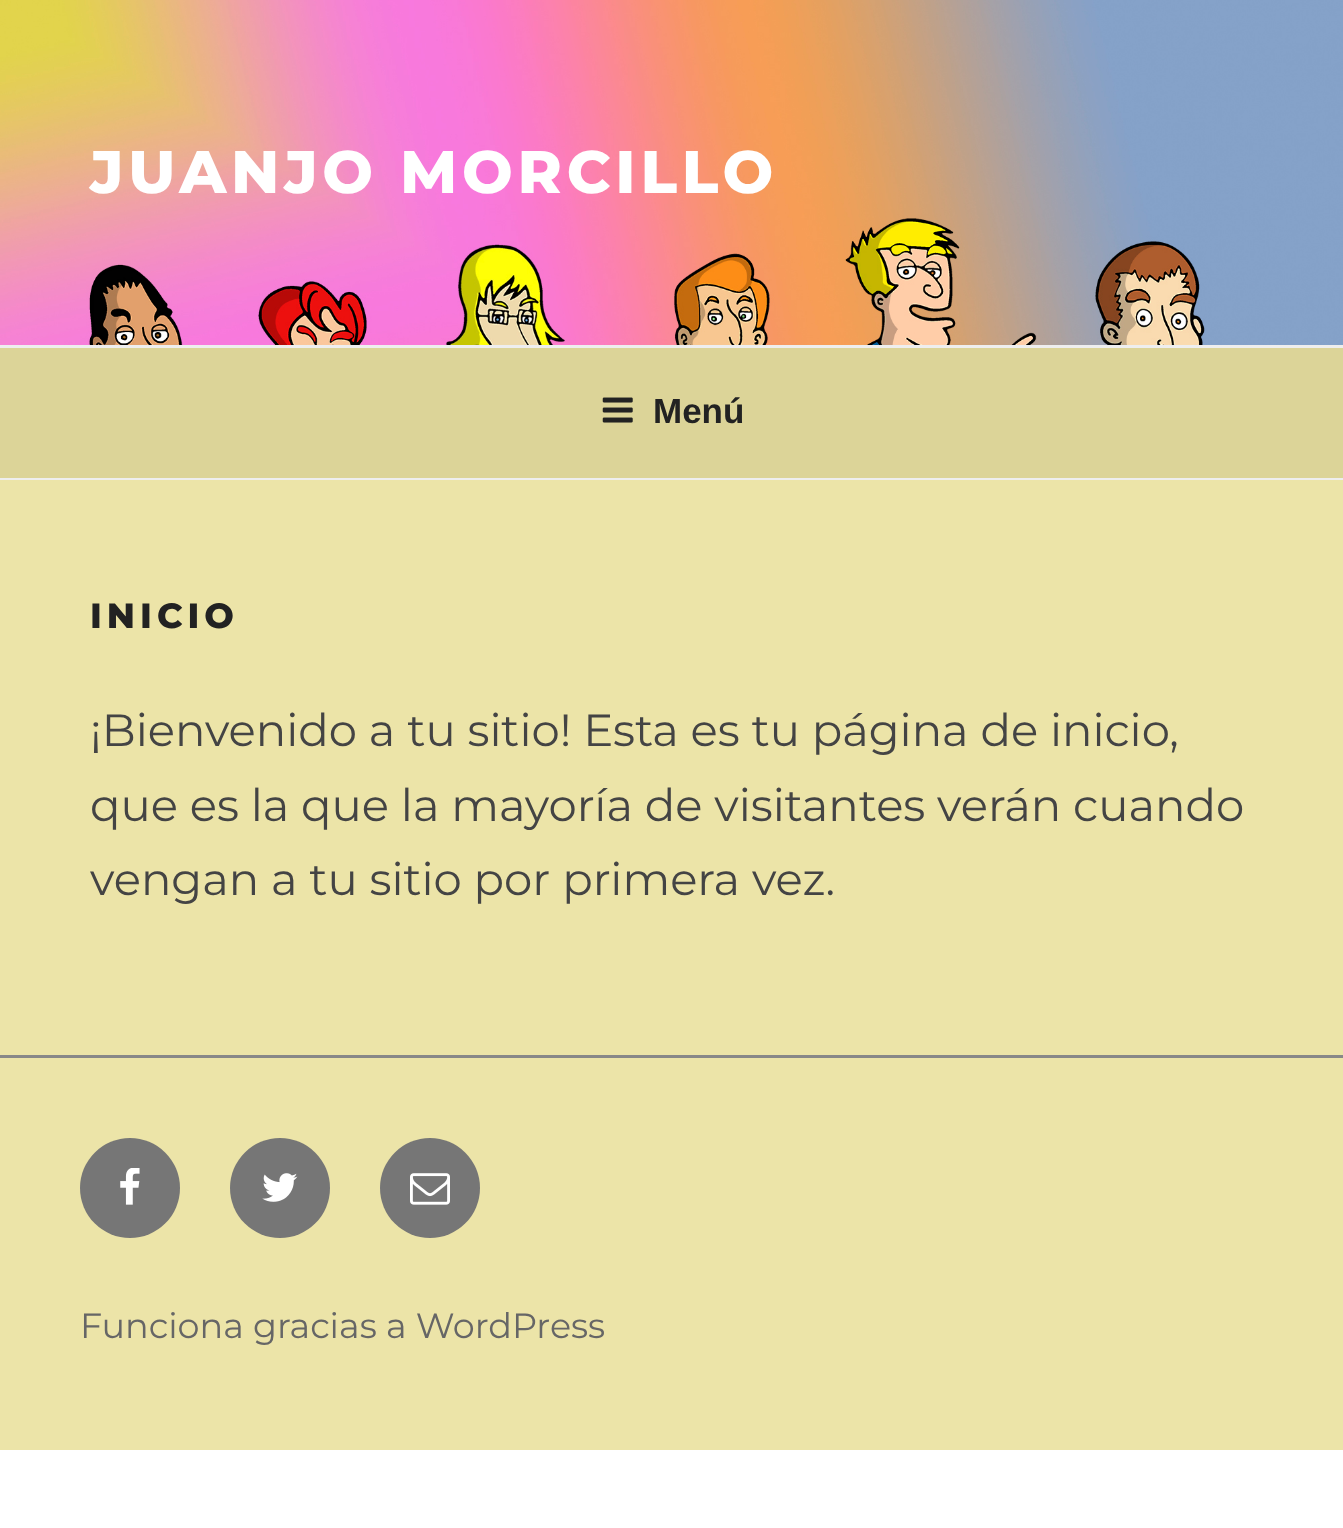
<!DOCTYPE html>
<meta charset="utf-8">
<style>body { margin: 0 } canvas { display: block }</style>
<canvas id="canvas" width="1343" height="1528"></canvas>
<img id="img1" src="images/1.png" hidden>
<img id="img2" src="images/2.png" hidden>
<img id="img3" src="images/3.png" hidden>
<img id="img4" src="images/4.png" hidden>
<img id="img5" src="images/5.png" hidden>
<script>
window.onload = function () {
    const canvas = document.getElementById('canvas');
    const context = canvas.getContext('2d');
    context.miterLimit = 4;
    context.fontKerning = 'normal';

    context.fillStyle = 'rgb(255, 255, 255)';
    context.fillRect(0, 0, 1343, 1528);
    context.drawImage(document.getElementById('img1'), 0, 0, 1343, 345);
    context.fillStyle = 'rgb(220, 212, 152)';
    context.fillRect(0, 348, 1343, 130);
    context.fillStyle = 'rgb(238, 238, 238)';
    context.fillRect(0, 345, 1343, 3);
    context.fillRect(0, 478, 1343, 2);
    context.drawImage(document.getElementById('img2'), 602, 397, 31, 26);
    context.fillStyle = 'rgb(236, 228, 168)';
    context.fillRect(0, 480, 1343, 970);
    context.fillStyle = 'rgb(136, 136, 136)';
    context.fillRect(0, 1055, 1343, 3);
    context.fillStyle = 'rgb(118, 118, 118)';
    context.beginPath();
    context.arc(130, 1188, 50, 0, 2 * Math.PI);
    context.fill();
    context.drawImage(document.getElementById('img3'), 120, 1168, 20, 37);
    context.beginPath();
    context.arc(280, 1188, 50, 0, 2 * Math.PI);
    context.fill();
    context.drawImage(document.getElementById('img4'), 262, 1173, 36, 29);
    context.beginPath();
    context.arc(430, 1188, 50, 0, 2 * Math.PI);
    context.fill();
    context.drawImage(document.getElementById('img5'), 410, 1173, 40, 32);
    context.letterSpacing = '4.75px';
    context.font = '800 60px Montserrat';
    context.fillStyle = 'rgb(255, 255, 255)';
    context.fillText('JUANJO MORCILLO', 90, 193);
    context.letterSpacing = '0px';
    context.font = 'bold 35px Liberation Sans';
    context.fillStyle = 'rgb(34, 34, 34)';
    context.fillText('Menú', 653, 423);
    context.letterSpacing = '5px';
    context.font = '800 35px Montserrat';
    context.fillText('INICIO', 90, 628);
    context.letterSpacing = '0px';
    context.font = '45px Montserrat';
    context.fillStyle = 'rgb(68, 68, 68)';
    context.fillText('¡Bienvenido a tu sitio! Esta es tu página de inicio,', 90, 746);
    context.fillText('que es la que la mayoría de visitantes verán cuando', 90, 821);
    context.fillText('vengan a tu sitio por primera vez.', 90, 895);
    context.font = '35px Montserrat';
    context.fillStyle = 'rgb(102, 102, 102)';
    context.fillText('Funciona gracias a WordPress', 80, 1338);
};
</script>
